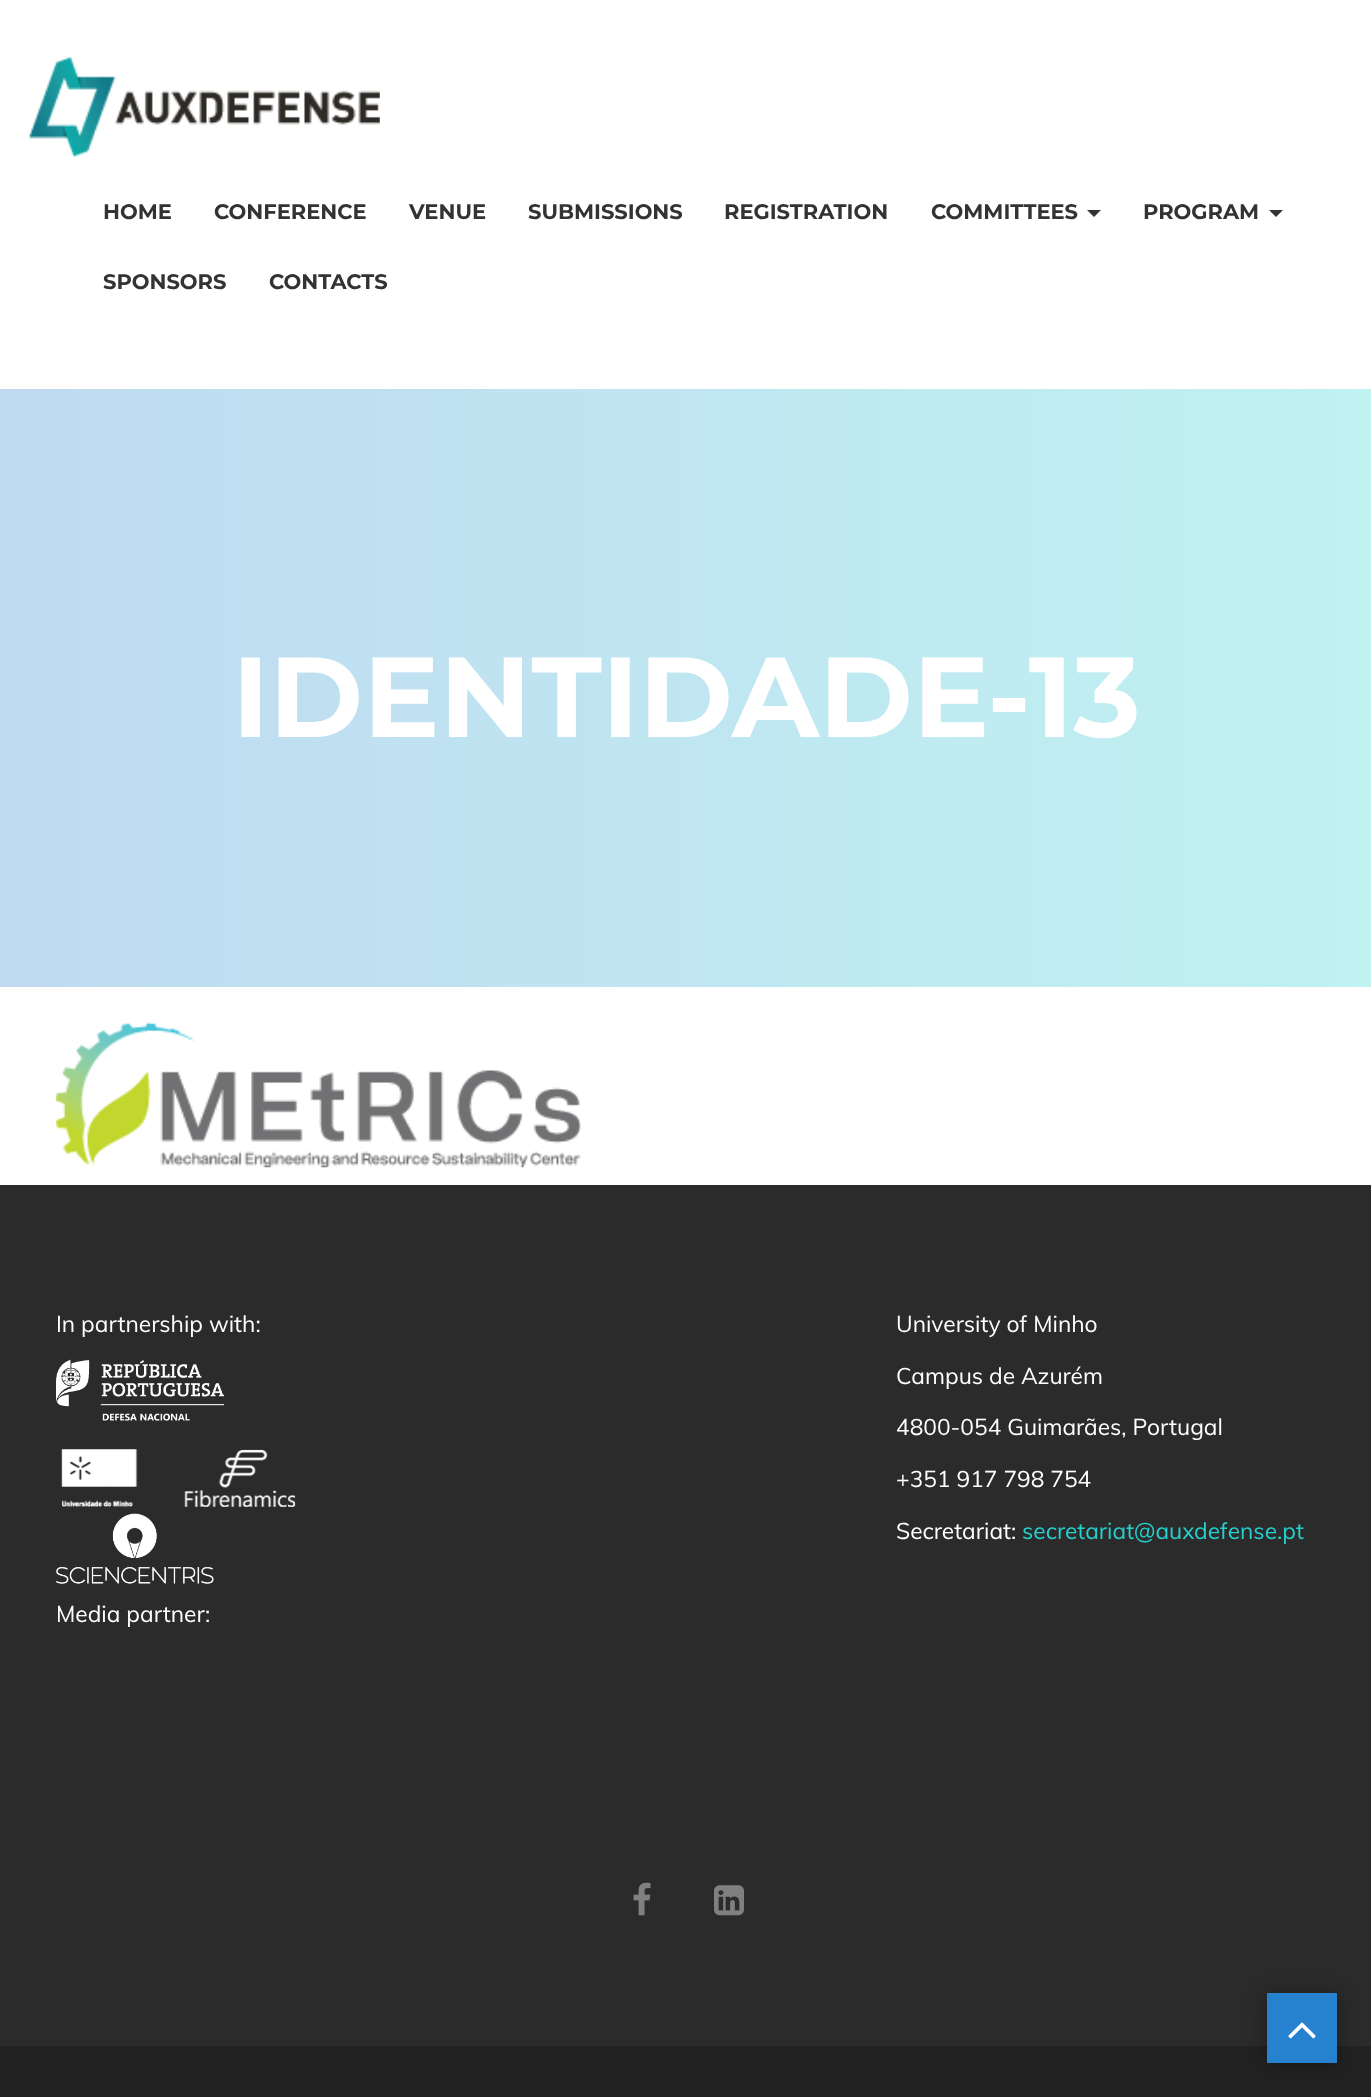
<!DOCTYPE html>
<meta charset="utf-8">
<style>body { margin: 0 } canvas { display: block }</style>
<canvas id="canvas" width="1371" height="2097"></canvas>
<img id="img1" src="images/1.png" hidden>
<img id="img2" src="images/2.png" hidden>
<img id="img3" src="images/3.png" hidden>
<img id="img4" src="images/4.png" hidden>
<img id="img5" src="images/5.png" hidden>
<img id="img6" src="images/6.png" hidden>
<img id="img7" src="images/7.png" hidden>
<img id="img8" src="images/8.png" hidden>
<script>
window.onload = function () {
    const canvas = document.getElementById('canvas');
    const context = canvas.getContext('2d');
    context.miterLimit = 4;
    context.fontKerning = 'normal';
    let gradient;

    context.fillStyle = 'rgb(255, 255, 255)';
    context.fillRect(0, 0, 1371, 2097);
    context.drawImage(document.getElementById('img1'), 29, 56, 351, 102);
    context.fillStyle = 'rgb(51, 51, 51)';
    context.beginPath();
    context.moveTo(1087, 210);
    context.lineTo(1101, 210);
    context.lineTo(1094, 217);
    context.closePath();
    context.fill();
    context.beginPath();
    context.moveTo(1269, 210);
    context.lineTo(1283, 210);
    context.lineTo(1276, 217);
    context.closePath();
    context.fill();
    gradient = context.createLinearGradient(0, 688, 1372, 688);
    gradient.addColorStop(0, 'rgb(191, 218, 241)');
    gradient.addColorStop(1, 'rgb(191, 242, 241)');
    context.fillStyle = gradient;
    context.fillRect(0, 389, 1371, 598);
    context.drawImage(document.getElementById('img2'), 56, 1022, 525, 146);
    context.fillStyle = 'rgb(43, 43, 43)';
    context.fillRect(0, 1185, 1371, 861);
    context.drawImage(document.getElementById('img3'), 56, 1359, 168, 62);
    context.drawImage(document.getElementById('img4'), 61, 1449, 235, 58);
    context.drawImage(document.getElementById('img5'), 56, 1513, 158, 71);
    context.drawImage(document.getElementById('img6'), 633, 1882, 18, 34);
    context.drawImage(document.getElementById('img7'), 714, 1885, 30, 31);
    context.fillStyle = 'rgb(34, 34, 34)';
    context.fillRect(0, 2046, 1371, 51);
    context.fillStyle = 'rgba(0, 0, 0, 0.35)';
    context.filter = 'blur(10.5px)';
    context.beginPath();
    context.rect(1267, 1995, 70, 70);
    context.fill();
    context.filter = 'none';
    context.fillStyle = 'rgb(38, 129, 207)';
    context.fillRect(1267, 1993, 70, 70);
    context.drawImage(document.getElementById('img8'), 1288, 2022, 28, 17);
    context.font = '100 21px Montserrat';
    context.fillStyle = 'rgb(51, 51, 51)';
    context.fillText('HOME', 103, 219);
    context.fillText('CONFERENCE', 214, 219);
    context.fillText('VENUE', 409, 219);
    context.fillText('SUBMISSIONS', 528, 219);
    context.fillText('REGISTRATION', 724, 219);
    context.fillText('COMMITTEES', 931, 219);
    context.fillText('PROGRAM', 1143, 219);
    context.fillText('SPONSORS', 103, 289);
    context.fillText('CONTACTS', 269, 289);
    context.font = '100 113.75px Montserrat';
    context.fillStyle = 'rgb(255, 255, 255)';
    context.fillText('IDENTIDADE-13', 232, 737);
    context.font = '22.75px Muli';
    context.fillText('In partnership with:', 56, 1332);
    context.fillText('Media partner:', 56, 1622);
    context.fillText('University of Minho', 896, 1332);
    context.fillText('Campus de Azurém', 896, 1384);
    context.fillText('4800-054 Guimarães, Portugal', 896, 1435);
    context.fillText('+351 917 798 754', 896, 1487);
    context.fillText('Secretariat:', 896, 1539);
    context.fillStyle = 'rgb(38, 208, 206)';
    context.fillText('secretariat@auxdefense.pt', 1022, 1539);
};
</script>
